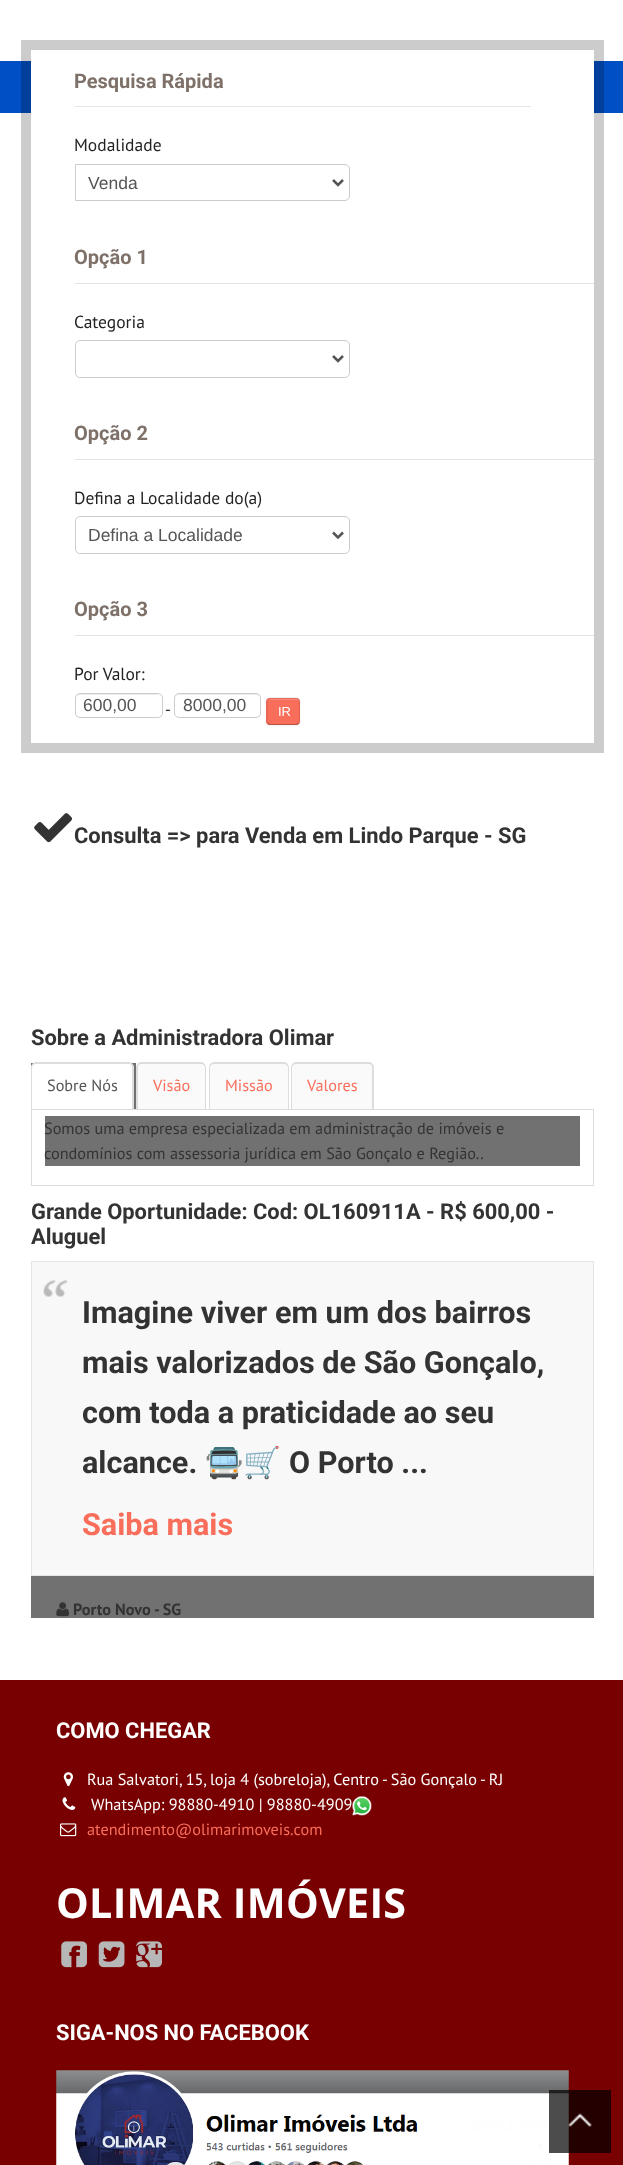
<!DOCTYPE html>
<meta charset="utf-8">
<style>body { margin: 0 } canvas { display: block }</style>
<canvas id="canvas" width="623" height="2165"></canvas>
<img id="img1" src="images/1.png" hidden>
<img id="img2" src="images/2.png" hidden>
<img id="img3" src="images/3.png" hidden>
<img id="img4" src="images/4.png" hidden>
<img id="img5" src="images/5.png" hidden>
<img id="img6" src="images/6.png" hidden>
<img id="img7" src="images/7.png" hidden>
<img id="img8" src="images/8.png" hidden>
<img id="img9" src="images/9.png" hidden>
<img id="img10" src="images/10.png" hidden>
<img id="img11" src="images/11.png" hidden>
<img id="img12" src="images/12.png" hidden>
<script>
window.onload = function () {
    const canvas = document.getElementById('canvas');
    const context = canvas.getContext('2d');
    context.miterLimit = 4;
    context.fontKerning = 'normal';

    context.fillStyle = 'rgb(255, 255, 255)';
    context.fillRect(0, 0, 623, 2165);
    context.fillStyle = 'rgb(0, 79, 196)';
    context.fillRect(0, 61, 623, 52);
    context.strokeStyle = 'rgba(0, 0, 0, 0.2)';
    context.lineWidth = 10;
    context.strokeRect(26, 45, 573, 703);
    context.fillStyle = 'rgb(255, 255, 255)';
    context.fillRect(31, 61, 563, 52);
    context.fillStyle = 'rgb(229, 229, 229)';
    context.fillRect(75, 106, 456, 1);
    context.beginPath();
    context.roundRect(75.5, 164.5, 274, 36, [0, 4.5, 4.5, 0]);
    context.strokeStyle = 'rgb(204, 204, 204)';
    context.lineWidth = 1;
    context.stroke();
    context.beginPath();
    context.moveTo(333, 180);
    context.lineTo(338, 185);
    context.lineTo(343, 180);
    context.strokeStyle = 'rgb(85, 85, 85)';
    context.lineWidth = 2.5;
    context.stroke();
    context.fillRect(75, 283, 519, 1);
    context.beginPath();
    context.roundRect(75.5, 340.5, 274, 37, 4.5);
    context.strokeStyle = 'rgb(204, 204, 204)';
    context.lineWidth = 1;
    context.stroke();
    context.beginPath();
    context.moveTo(333, 356);
    context.lineTo(338, 361);
    context.lineTo(343, 356);
    context.strokeStyle = 'rgb(85, 85, 85)';
    context.lineWidth = 2.5;
    context.stroke();
    context.fillRect(75, 459, 519, 1);
    context.beginPath();
    context.roundRect(75.5, 516.5, 274, 37, 4.5);
    context.strokeStyle = 'rgb(204, 204, 204)';
    context.lineWidth = 1;
    context.stroke();
    context.beginPath();
    context.moveTo(333, 532.5);
    context.lineTo(338, 537.5);
    context.lineTo(343, 532.5);
    context.strokeStyle = 'rgb(85, 85, 85)';
    context.lineWidth = 2.5;
    context.stroke();
    context.fillRect(75, 635, 519, 1);
    context.fillStyle = 'rgb(236, 236, 236)';
    context.beginPath();
    context.moveTo(80, 695);
    context.lineTo(158, 695);
    context.bezierCurveTo(160, 695, 161, 697, 161, 699);
    context.bezierCurveTo(161, 691, 149, 694, 144, 694);
    context.lineTo(93, 694);
    context.bezierCurveTo(88, 694, 76, 691, 76, 699);
    context.bezierCurveTo(76, 697, 78, 695, 80, 695);
    context.closePath();
    context.fill();
    context.beginPath();
    context.roundRect(75.5, 693.5, 87, 24, 4.5);
    context.strokeStyle = 'rgb(204, 204, 204)';
    context.lineWidth = 1;
    context.stroke();
    context.beginPath();
    context.moveTo(179, 695);
    context.lineTo(256, 695);
    context.bezierCurveTo(258, 695, 260, 697, 260, 699);
    context.bezierCurveTo(260, 691, 248, 694, 243, 694);
    context.lineTo(192, 694);
    context.bezierCurveTo(187, 694, 175, 691, 175, 699);
    context.bezierCurveTo(175, 697, 177, 695, 179, 695);
    context.closePath();
    context.fill();
    context.beginPath();
    context.roundRect(174.5, 693.5, 86, 24, 4.5);
    context.stroke();
    context.fillStyle = 'rgba(0, 0, 0, 0.05)';
    context.filter = 'blur(1px)';
    context.beginPath();
    context.roundRect(266, 699, 34, 27, 4);
    context.fill();
    context.filter = 'none';
    context.fillStyle = 'rgb(249, 110, 91)';
    context.beginPath();
    context.roundRect(266, 698, 34, 27, 4);
    context.fill();
    context.fillStyle = 'rgb(250, 139, 124)';
    context.beginPath();
    context.moveTo(270, 700);
    context.lineTo(296, 700);
    context.bezierCurveTo(298, 700, 299, 701, 299, 702);
    context.bezierCurveTo(299, 698, 295, 699, 292, 699);
    context.lineTo(275, 699);
    context.bezierCurveTo(272, 699, 268, 698, 268, 702);
    context.bezierCurveTo(268, 701, 269, 700, 270, 700);
    context.closePath();
    context.fill();
    context.beginPath();
    context.moveTo(298.5, 723.5);
    context.bezierCurveTo(298, 724, 297, 724.5, 296, 724.5);
    context.lineTo(270, 724.5);
    context.bezierCurveTo(269, 724.5, 268.5, 724, 268, 723.5);
    context.strokeStyle = 'rgba(0, 0, 0, 0.25)';
    context.lineWidth = 1.2;
    context.stroke();
    context.beginPath();
    context.moveTo(268, 723.5);
    context.bezierCurveTo(267, 723, 267, 722, 267, 721);
    context.lineTo(267, 701);
    context.bezierCurveTo(267, 700.5, 267, 699.5, 268, 699);
    context.bezierCurveTo(268.5, 698.5, 269, 698, 270, 698);
    context.lineTo(296, 698);
    context.bezierCurveTo(297, 698, 298, 698.5, 298.5, 699);
    context.bezierCurveTo(299, 699.5, 299.5, 700.5, 299.5, 701);
    context.lineTo(299.5, 721);
    context.bezierCurveTo(299.5, 722, 299, 723, 298.5, 723.5);
    context.strokeStyle = 'rgba(0, 0, 0, 0.1)';
    context.stroke();
    context.drawImage(document.getElementById('img1'), 34, 813, 38, 30);
    context.fillStyle = 'rgb(113, 113, 113)';
    context.fillRect(31, 1063, 105, 46);
    context.fillStyle = 'rgb(255, 255, 255)';
    context.beginPath();
    context.roundRect(31, 1063, 103, 46, [5, 5, 0, 0]);
    context.fill();
    context.fillStyle = 'rgb(221, 221, 221)';
    context.beginPath();
    context.moveTo(36, 1062);
    context.lineTo(129, 1062);
    context.bezierCurveTo(132, 1062, 134, 1065, 134, 1068);
    context.lineTo(134, 1109);
    context.lineTo(31, 1109);
    context.lineTo(31, 1068);
    context.bezierCurveTo(31, 1065, 33, 1062, 36, 1062);
    context.closePath();
    context.moveTo(36, 1064);
    context.lineTo(129, 1064);
    context.bezierCurveTo(131, 1064, 132, 1065, 132, 1068);
    context.lineTo(132, 1109);
    context.lineTo(32, 1109);
    context.lineTo(32, 1068);
    context.bezierCurveTo(32, 1065, 34, 1064, 36, 1064);
    context.closePath();
    context.fill('evenodd');
    context.fillStyle = 'rgb(250, 250, 250)';
    context.beginPath();
    context.roundRect(136, 1063, 70, 46, [5, 5, 0, 0]);
    context.fill();
    context.fillStyle = 'rgb(221, 221, 221)';
    context.beginPath();
    context.moveTo(141, 1062);
    context.lineTo(201, 1062);
    context.bezierCurveTo(204, 1062, 206, 1065, 206, 1068);
    context.lineTo(206, 1109);
    context.lineTo(136, 1109);
    context.lineTo(136, 1068);
    context.bezierCurveTo(136, 1065, 138, 1062, 141, 1062);
    context.closePath();
    context.moveTo(141, 1064);
    context.lineTo(201, 1064);
    context.bezierCurveTo(203, 1064, 205, 1065, 205, 1068);
    context.lineTo(205, 1109);
    context.lineTo(138, 1109);
    context.lineTo(138, 1068);
    context.bezierCurveTo(138, 1065, 139, 1064, 141, 1064);
    context.closePath();
    context.fill('evenodd');
    context.fillStyle = 'rgb(250, 250, 250)';
    context.beginPath();
    context.roundRect(209, 1063, 80, 46, [5, 5, 0, 0]);
    context.fill();
    context.fillStyle = 'rgb(221, 221, 221)';
    context.beginPath();
    context.moveTo(214, 1062);
    context.lineTo(284, 1062);
    context.bezierCurveTo(287, 1062, 289, 1065, 289, 1068);
    context.lineTo(289, 1109);
    context.lineTo(209, 1109);
    context.lineTo(209, 1068);
    context.bezierCurveTo(209, 1065, 211, 1062, 214, 1062);
    context.closePath();
    context.moveTo(214, 1064);
    context.lineTo(284, 1064);
    context.bezierCurveTo(286, 1064, 288, 1065, 288, 1068);
    context.lineTo(288, 1109);
    context.lineTo(210, 1109);
    context.lineTo(210, 1068);
    context.bezierCurveTo(210, 1065, 212, 1064, 214, 1064);
    context.closePath();
    context.fill('evenodd');
    context.fillStyle = 'rgb(250, 250, 250)';
    context.beginPath();
    context.roundRect(291, 1063, 83, 46, [5, 5, 0, 0]);
    context.fill();
    context.fillStyle = 'rgb(221, 221, 221)';
    context.beginPath();
    context.moveTo(296, 1062);
    context.lineTo(369, 1062);
    context.bezierCurveTo(372, 1062, 374, 1065, 374, 1068);
    context.lineTo(374, 1109);
    context.lineTo(291, 1109);
    context.lineTo(291, 1068);
    context.bezierCurveTo(291, 1065, 293, 1062, 296, 1062);
    context.closePath();
    context.moveTo(296, 1064);
    context.lineTo(369, 1064);
    context.bezierCurveTo(371, 1064, 372, 1065, 372, 1068);
    context.lineTo(372, 1109);
    context.lineTo(292, 1109);
    context.lineTo(292, 1068);
    context.bezierCurveTo(292, 1065, 294, 1064, 296, 1064);
    context.closePath();
    context.fill('evenodd');
    context.strokeStyle = 'rgb(221, 221, 221)';
    context.lineWidth = 1;
    context.strokeRect(31.5, 1109.5, 562, 76);
    context.fillStyle = 'rgb(113, 113, 113)';
    context.fillRect(45, 1116, 535, 50);
    context.fillRect(31, 1576, 563, 42);
    context.fillStyle = 'rgb(248, 248, 248)';
    context.fillRect(32, 1262, 561, 313);
    context.drawImage(document.getElementById('img2'), 43, 1280, 25, 17);
    context.strokeStyle = 'rgb(229, 229, 229)';
    context.strokeRect(31.5, 1261.5, 562, 314);
    context.drawImage(document.getElementById('img3'), 56, 1602, 13, 15);
    context.fillStyle = 'rgb(121, 0, 0)';
    context.fillRect(0, 1680, 623, 485);
    context.drawImage(document.getElementById('img4'), 63, 1772, 10, 15);
    context.drawImage(document.getElementById('img5'), 62, 1797, 14, 13);
    context.drawImage(document.getElementById('img6'), 352, 1796, 20, 20);
    context.drawImage(document.getElementById('img7'), 60, 1823, 17, 14);
    context.drawImage(document.getElementById('img8'), 61, 1941, 26, 27);
    context.drawImage(document.getElementById('img9'), 98, 1941, 27, 27);
    context.drawImage(document.getElementById('img10'), 136, 1941, 26, 27);
    context.drawImage(document.getElementById('img11'), 56, 2070, 513, 95);
    context.fillStyle = 'rgba(0, 0, 0, 0.7)';
    context.fillRect(549, 2090, 62, 63);
    context.drawImage(document.getElementById('img12'), 568, 2113, 24, 14);
    context.font = 'bold 20px Roboto';
    context.fillStyle = 'rgb(126, 113, 105)';
    context.fillText('Pesquisa Rápida', 74, 88);
    context.font = '17.5px PT Sans';
    context.fillStyle = 'rgb(34, 34, 34)';
    context.fillText('Modalidade', 74, 151);
    context.font = '17.5px Liberation Sans';
    context.fillStyle = 'rgb(85, 85, 85)';
    context.fillText('Venda', 88, 189);
    context.font = 'bold 20px Roboto';
    context.fillStyle = 'rgb(126, 113, 105)';
    context.fillText('Opção 1', 74, 264);
    context.font = '17.5px PT Sans';
    context.fillStyle = 'rgb(34, 34, 34)';
    context.fillText('Categoria', 74, 328);
    context.font = 'bold 20px Roboto';
    context.fillStyle = 'rgb(126, 113, 105)';
    context.fillText('Opção 2', 74, 440);
    context.font = '17.5px PT Sans';
    context.fillStyle = 'rgb(34, 34, 34)';
    context.fillText('Defina a Localidade do(a)', 74, 504);
    context.font = '17.5px Liberation Sans';
    context.fillStyle = 'rgb(85, 85, 85)';
    context.fillText('Defina a Localidade', 88, 541);
    context.font = 'bold 20px Roboto';
    context.fillStyle = 'rgb(126, 113, 105)';
    context.fillText('Opção 3', 74, 616);
    context.font = '17.5px PT Sans';
    context.fillStyle = 'rgb(34, 34, 34)';
    context.fillText('Por Valor:', 74, 680);
    context.font = '17.5px Liberation Sans';
    context.fillStyle = 'rgb(85, 85, 85)';
    context.fillText('600,00', 83, 711);
    context.font = '16.25px PT Sans';
    context.fillStyle = 'rgb(34, 34, 34)';
    context.fillText('-', 165, 715);
    context.font = '17.5px Liberation Sans';
    context.fillStyle = 'rgb(85, 85, 85)';
    context.fillText('8000,00', 183, 711);
    context.font = '13px Liberation Sans';
    context.fillStyle = 'rgb(255, 255, 255)';
    context.fillText('IR', 278, 716);
    context.font = 'bold 21.9px Roboto';
    context.fillStyle = 'rgb(51, 51, 51)';
    context.fillText('Consulta => para Venda em Lindo Parque - SG', 74, 843);
    context.fillText('Sobre a Administradora Olimar', 31, 1045);
    context.font = '16.25px PT Sans';
    context.fillStyle = 'rgb(85, 85, 85)';
    context.fillText('Sobre Nós', 47, 1091);
    context.fillStyle = 'rgb(249, 110, 91)';
    context.fillText('Visão', 153, 1091);
    context.fillText('Missão', 225, 1091);
    context.fillText('Valores', 307, 1091);
    context.fillStyle = 'rgb(51, 51, 51)';
    context.fillText('Somos uma empresa especializada em administração de imóveis e', 44, 1134);
    context.fillText('condomínios com assessoria jurídica em São Gonçalo e Região..', 44, 1159);
    context.font = 'bold 21.9px Roboto';
    context.fillText('Grande Oportunidade: Cod: OL160911A - R$ 600,00 -', 31, 1219);
    context.fillText('Aluguel', 31, 1244);
    context.font = 'bold 30.6px Roboto';
    context.fillText('Imagine viver em um dos bairros', 82, 1323);
    context.fillText('mais valorizados de São Gonçalo,', 82, 1373);
    context.fillText('com toda a praticidade ao seu', 82, 1423);
    context.fillText('alcance.', 82, 1473);
    context.font = 'bold 30.6px Noto Color Emoji';
    context.fillText('🚍🛒', 205, 1473);
    context.font = 'bold 30.6px Roboto';
    context.fillText('O Porto ...', 289, 1473);
    context.fillStyle = 'rgb(249, 110, 91)';
    context.fillText('Saiba mais', 82, 1535);
    context.font = 'bold 16.25px PT Sans';
    context.fillStyle = 'rgb(51, 51, 51)';
    context.fillText('Porto Novo - SG', 73, 1615);
    context.font = 'bold 21.9px Roboto';
    context.fillStyle = 'rgb(255, 255, 255)';
    context.fillText('COMO CHEGAR', 56, 1738);
    context.font = '16.25px PT Sans';
    context.fillText('Rua Salvatori, 15, loja 4 (sobreloja), Centro - São Gonçalo - RJ', 87, 1785);
    context.fillText('WhatsApp: 98880-4910 | 98880-4909', 91, 1810);
    context.fillStyle = 'rgb(249, 110, 91)';
    context.fillText('atendimento@olimarimoveis.com', 87, 1835);
    context.letterSpacing = '0.25px';
    context.font = 'bold 41.25px Open Sans';
    context.fillStyle = 'rgb(255, 255, 255)';
    context.fillText('OLIMAR IMÓVEIS', 56, 1918);
    context.letterSpacing = '0px';
    context.font = 'bold 21.9px Roboto';
    context.fillText('SIGA-NOS NO FACEBOOK', 56, 2040);
};
</script>
